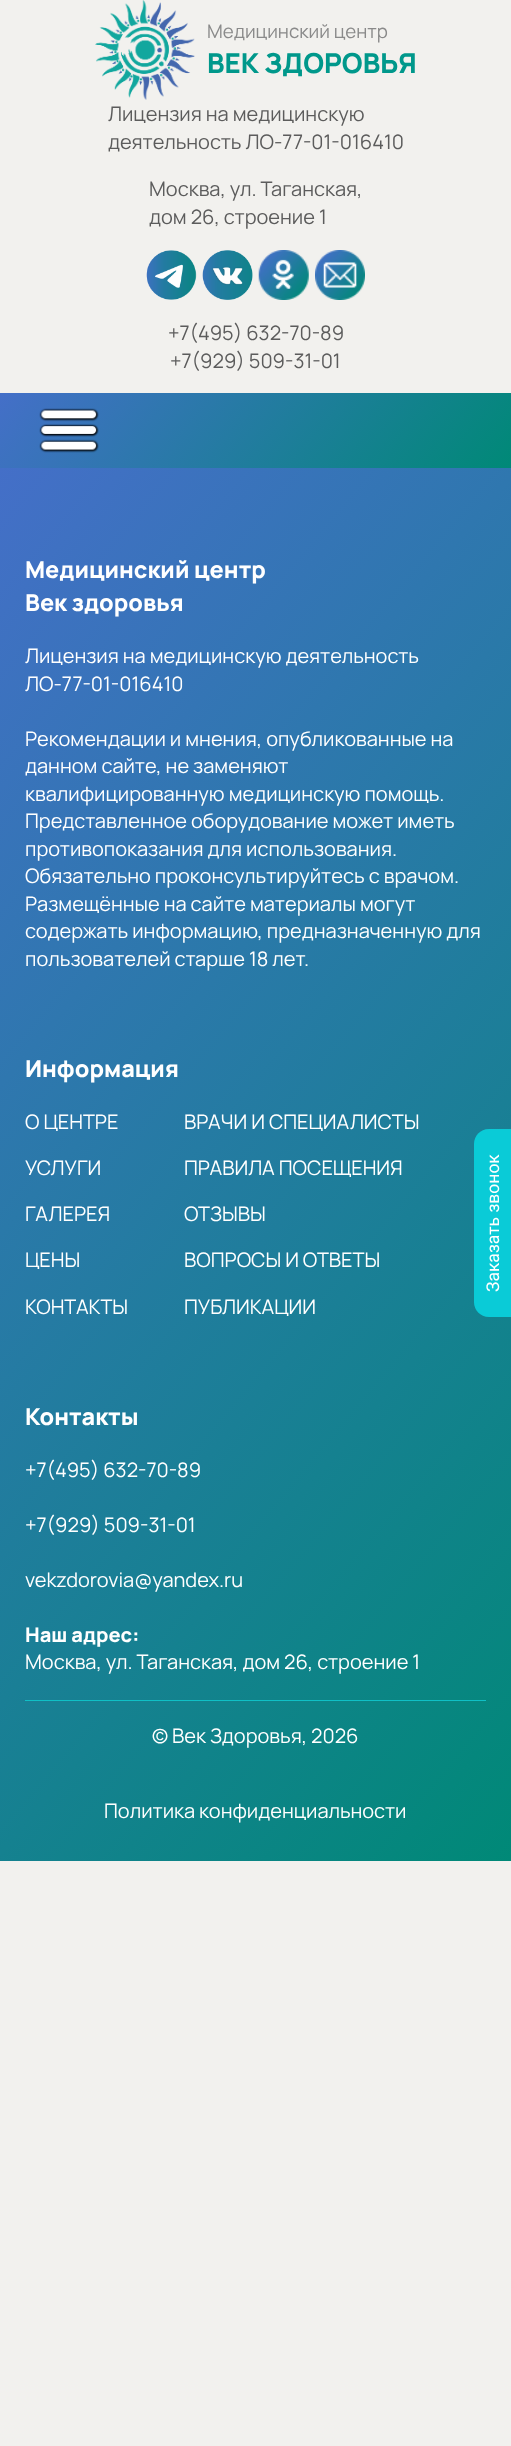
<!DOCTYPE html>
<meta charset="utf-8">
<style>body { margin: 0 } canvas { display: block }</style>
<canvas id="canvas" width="511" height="2446"></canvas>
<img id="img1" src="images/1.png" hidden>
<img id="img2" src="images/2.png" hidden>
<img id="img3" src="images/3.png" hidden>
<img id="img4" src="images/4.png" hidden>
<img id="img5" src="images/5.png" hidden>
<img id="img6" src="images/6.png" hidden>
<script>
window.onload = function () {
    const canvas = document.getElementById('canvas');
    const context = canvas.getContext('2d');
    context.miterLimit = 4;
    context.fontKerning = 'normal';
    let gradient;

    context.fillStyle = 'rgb(242, 241, 238)';
    context.fillRect(0, 0, 511, 2446);
    context.drawImage(document.getElementById('img1'), 95, 0, 100, 100);
    context.drawImage(document.getElementById('img2'), 146, 250, 51, 50);
    context.drawImage(document.getElementById('img3'), 202, 250, 51, 50);
    context.drawImage(document.getElementById('img4'), 258, 250, 51, 50);
    context.drawImage(document.getElementById('img5'), 315, 250, 50, 50);
    gradient = context.createLinearGradient(87, 289, 424, 571);
    gradient.addColorStop(0, 'rgb(68, 111, 200)');
    gradient.addColorStop(1, 'rgb(0, 137, 119)');
    context.fillStyle = gradient;
    context.fillRect(0, 393, 511, 75);
    context.drawImage(document.getElementById('img6'), 39, 408, 60, 45);
    gradient = context.createLinearGradient(-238, 751, 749, 1578);
    gradient.addColorStop(0, 'rgb(68, 111, 200)');
    gradient.addColorStop(1, 'rgb(0, 137, 119)');
    context.fillStyle = gradient;
    context.fillRect(0, 468, 511, 1393);
    context.fillStyle = 'rgb(16, 192, 198)';
    context.fillRect(25, 1700, 461, 1);
    context.fillStyle = 'rgb(10, 203, 215)';
    context.beginPath();
    context.moveTo(474, 1302);
    context.lineTo(474, 1144);
    context.bezierCurveTo(474, 1136, 480, 1129, 489, 1129);
    context.lineTo(511, 1129);
    context.lineTo(511, 1317);
    context.lineTo(489, 1317);
    context.bezierCurveTo(480, 1317, 474, 1310, 474, 1302);
    context.closePath();
    context.fill();
    context.font = '18.75px Manrope';
    context.fillStyle = 'rgb(138, 138, 138)';
    context.fillText('Медицинский центр', 207, 38);
    context.font = '800 27.5px Manrope';
    context.fillStyle = 'rgb(0, 152, 139)';
    context.fillText('ВЕК ЗДОРОВЬЯ', 207, 73);
    context.font = '20px Manrope';
    context.fillStyle = 'rgb(92, 92, 92)';
    context.fillText('Лицензия на медицинскую', 108, 121);
    context.fillText('деятельность ЛО-77-01-016410', 108, 149);
    context.fillText('Москва, ул. Таганская,', 149, 196);
    context.fillText('дом 26, строение 1', 149, 224);
    context.fillText('+7(495) 632-70-89', 168, 340);
    context.fillText('+7(929) 509-31-01', 170, 368);
    context.font = '800 23.4px Manrope';
    context.fillStyle = 'rgb(255, 255, 255)';
    context.fillText('Медицинский центр', 25, 578);
    context.fillText('Век здоровья', 25, 611);
    context.font = '20px Manrope';
    context.fillText('Лицензия на медицинскую деятельность', 25, 663);
    context.fillText('ЛО-77-01-016410', 25, 691);
    context.fillText('Рекомендации и мнения, опубликованные на', 25, 746);
    context.fillText('данном сайте, не заменяют', 25, 773);
    context.fillText('квалифицированную медицинскую помощь.', 25, 801);
    context.fillText('Представленное оборудование может иметь', 25, 828);
    context.fillText('противопоказания для использования.', 25, 856);
    context.fillText('Обязательно проконсультируйтесь с врачом.', 25, 883);
    context.fillText('Размещённые на сайте материалы могут', 25, 911);
    context.fillText('содержать информацию, предназначенную для', 25, 938);
    context.fillText('пользователей старше 18 лет.', 25, 966);
    context.font = '800 23.4px Manrope';
    context.fillText('Информация', 25, 1077);
    context.font = '20px Manrope';
    context.fillText('О ЦЕНТРЕ', 25, 1129);
    context.fillText('УСЛУГИ', 25, 1175);
    context.fillText('ГАЛЕРЕЯ', 25, 1221);
    context.fillText('ЦЕНЫ', 25, 1267);
    context.fillText('КОНТАКТЫ', 25, 1314);
    context.fillText('ВРАЧИ И СПЕЦИАЛИСТЫ', 184, 1129);
    context.fillText('ПРАВИЛА ПОСЕЩЕНИЯ', 184, 1175);
    context.fillText('ОТЗЫВЫ', 184, 1221);
    context.fillText('ВОПРОСЫ И ОТВЕТЫ', 184, 1267);
    context.fillText('ПУБЛИКАЦИИ', 184, 1314);
    context.font = '800 23.4px Manrope';
    context.fillText('Контакты', 25, 1425);
    context.font = '20px Manrope';
    context.fillText('+7(495) 632-70-89', 25, 1477);
    context.fillText('+7(929) 509-31-01', 25, 1532);
    context.fillText('vekzdorovia@yandex.ru', 25, 1587);
    context.font = '800 20px Manrope';
    context.fillText('Наш адрес:', 25, 1642);
    context.font = '20px Manrope';
    context.fillText('Москва, ул. Таганская, дом 26, строение 1', 25, 1669);
    context.fillText('© Век Здоровья, 2026', 152, 1743);
    context.fillText('Политика конфиденциальности', 104, 1818);
    context.font = '17.5px Roboto';
    context.save();
    context.translate(499, 1292);
    context.rotate(-90 * Math.PI / 180);
    context.fillText('Заказать звонок', 0, 0);
    context.restore();
};
</script>
